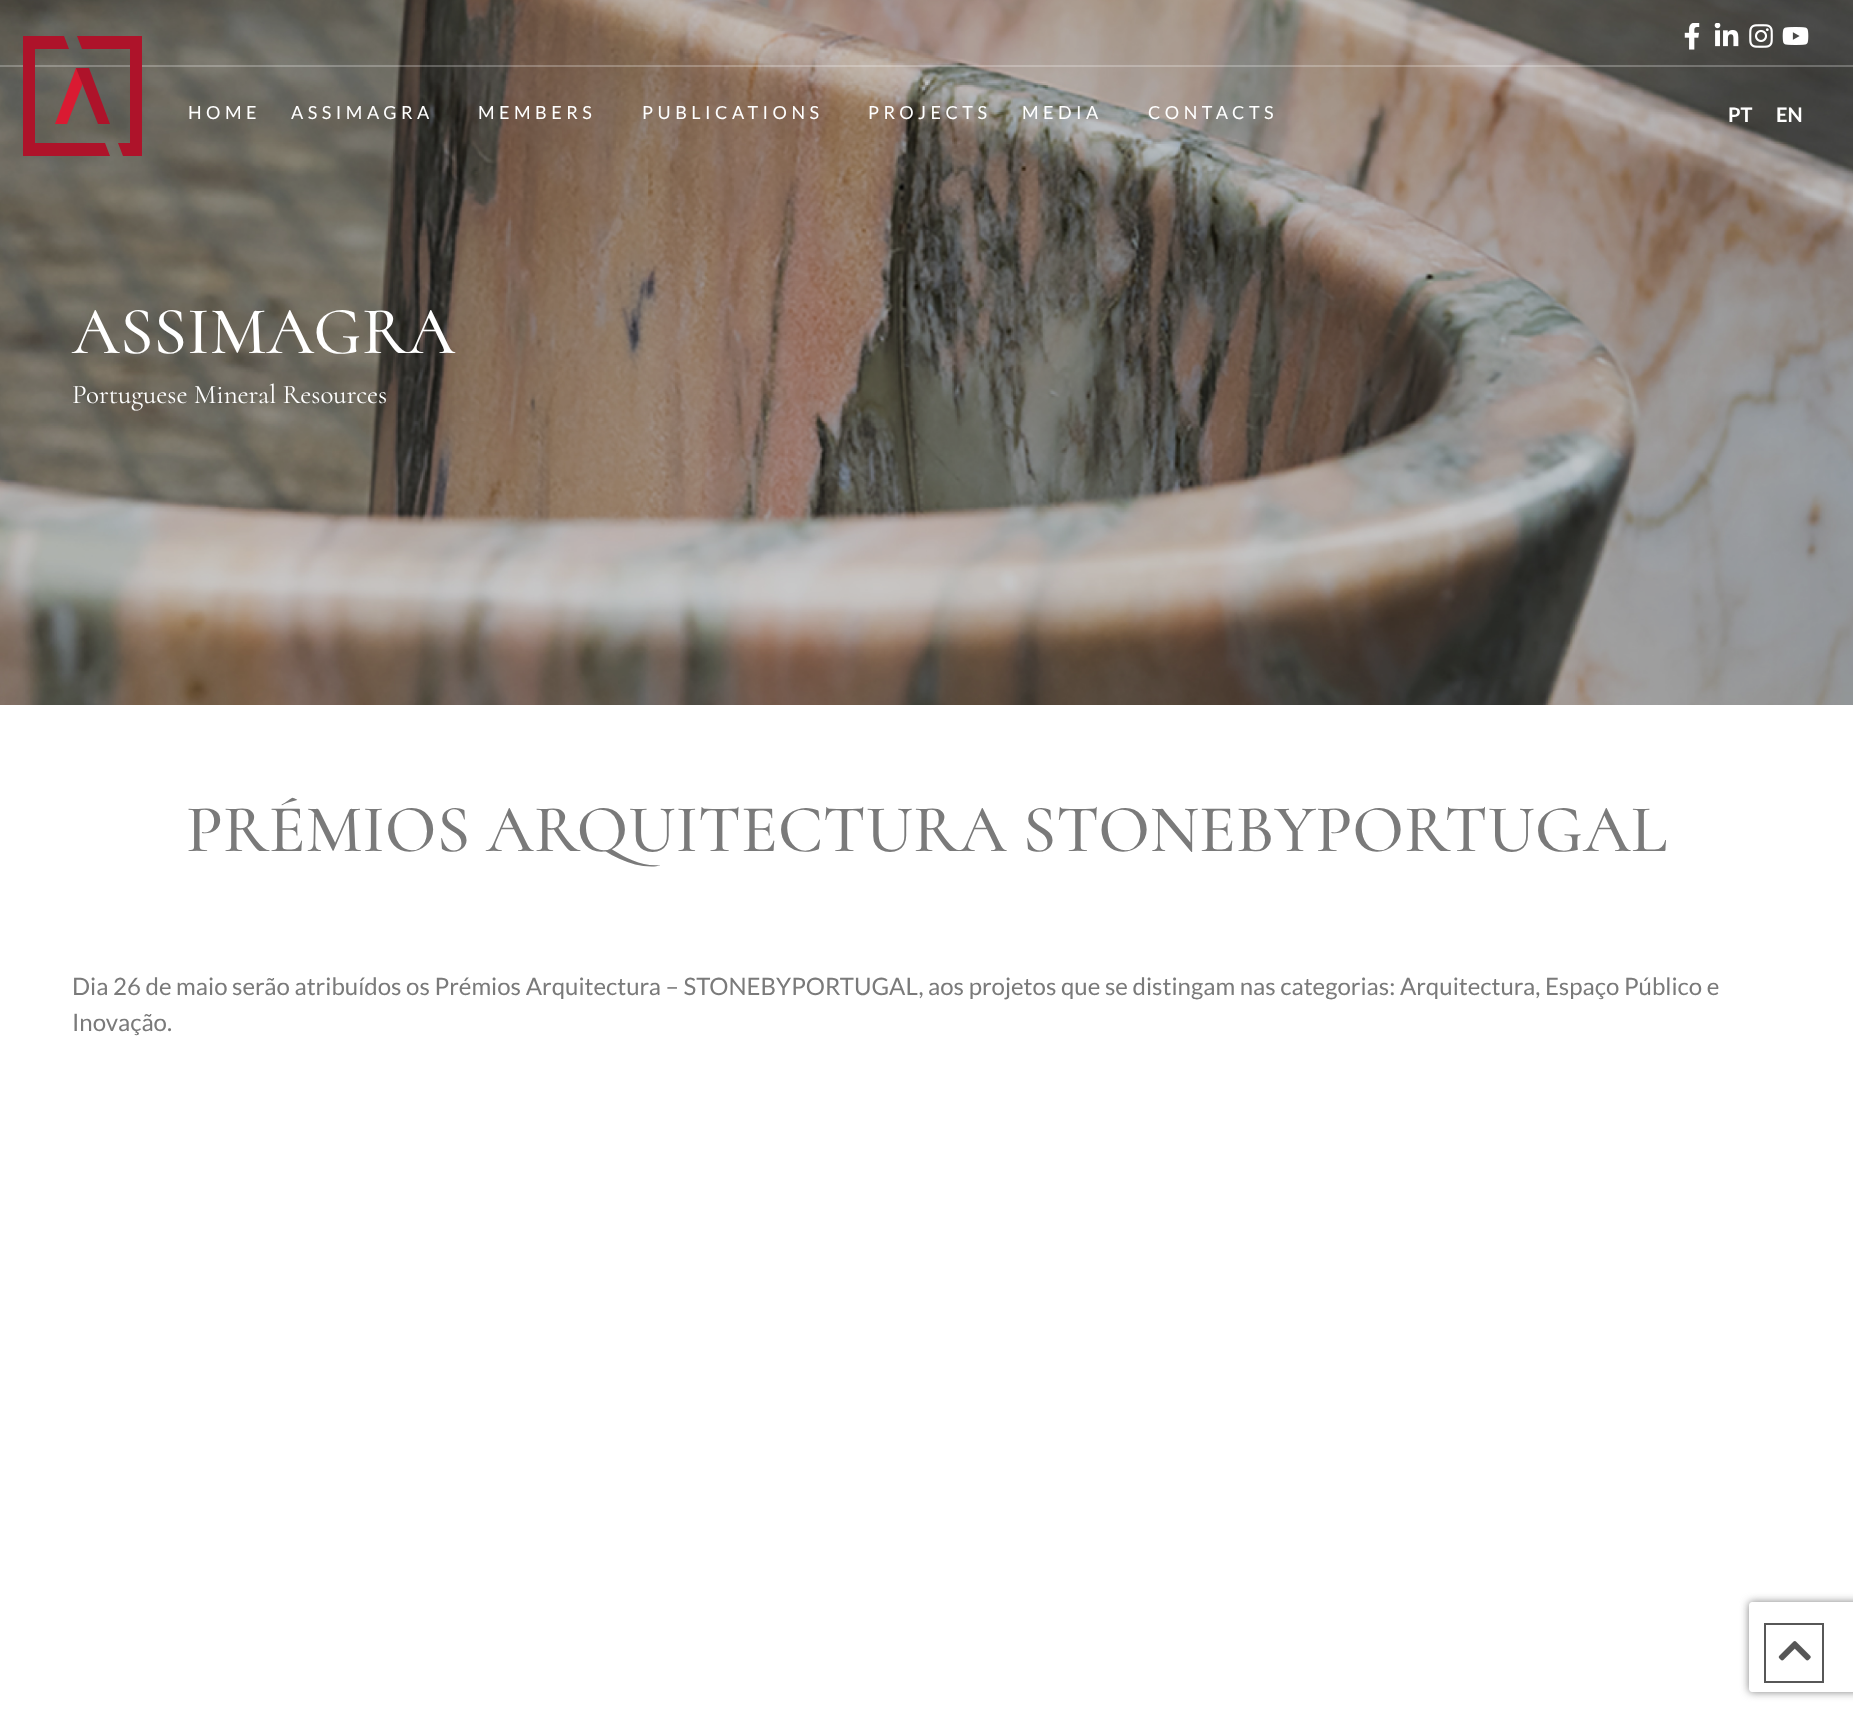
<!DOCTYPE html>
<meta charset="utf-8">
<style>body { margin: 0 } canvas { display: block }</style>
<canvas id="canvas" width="1853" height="1712"></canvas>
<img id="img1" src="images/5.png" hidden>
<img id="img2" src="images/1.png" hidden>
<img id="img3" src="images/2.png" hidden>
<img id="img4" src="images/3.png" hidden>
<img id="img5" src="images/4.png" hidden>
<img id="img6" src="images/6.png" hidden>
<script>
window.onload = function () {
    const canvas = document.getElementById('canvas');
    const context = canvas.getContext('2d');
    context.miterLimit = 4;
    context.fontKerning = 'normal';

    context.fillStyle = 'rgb(255, 255, 255)';
    context.fillRect(0, 0, 1853, 1712);
    context.drawImage(document.getElementById('img1'), 0, 0, 1853, 705);
    context.fillStyle = 'rgba(255, 255, 255, 0.25)';
    context.fillRect(0, 65, 1853, 2);
    context.drawImage(document.getElementById('img2'), 1684, 23, 16, 27);
    context.drawImage(document.getElementById('img3'), 1714, 23, 25, 24);
    context.drawImage(document.getElementById('img4'), 1749, 24, 24, 24);
    context.drawImage(document.getElementById('img5'), 1782, 27, 27, 18);
    context.fillStyle = 'rgb(218, 26, 50)';
    context.beginPath();
    context.moveTo(67, 124);
    context.lineTo(55, 124);
    context.lineTo(76, 68);
    context.lineTo(89, 68);
    context.closePath();
    context.fill();
    context.fillStyle = 'rgb(174, 19, 42)';
    context.beginPath();
    context.moveTo(98, 124);
    context.lineTo(110, 124);
    context.lineTo(89, 68);
    context.lineTo(76, 68);
    context.closePath();
    context.fill();
    context.save();
    context.beginPath();
    context.rect(23, 36, 120, 120);
    context.clip();
    context.beginPath();
    context.moveTo(35, 143);
    context.lineTo(35, 49);
    context.lineTo(69, 49);
    context.lineTo(64, 36);
    context.lineTo(22, 36);
    context.lineTo(22, 156);
    context.lineTo(110, 156);
    context.lineTo(105, 143);
    context.closePath();
    context.fill();
    context.restore();
    context.beginPath();
    context.moveTo(130, 36);
    context.lineTo(77, 36);
    context.lineTo(82, 49);
    context.lineTo(130, 49);
    context.lineTo(130, 143);
    context.lineTo(118, 143);
    context.lineTo(123, 156);
    context.lineTo(142, 156);
    context.lineTo(142, 36);
    context.closePath();
    context.fill();
    context.save();
    context.beginPath();
    context.moveTo(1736, 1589);
    context.lineTo(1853, 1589);
    context.lineTo(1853, 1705);
    context.lineTo(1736, 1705);
    context.closePath();
    context.moveTo(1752, 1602);
    context.lineTo(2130, 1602);
    context.bezierCurveTo(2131.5, 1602, 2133, 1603.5, 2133, 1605);
    context.lineTo(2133, 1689);
    context.bezierCurveTo(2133, 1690.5, 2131.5, 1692, 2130, 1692);
    context.lineTo(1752, 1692);
    context.bezierCurveTo(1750.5, 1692, 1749, 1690.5, 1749, 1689);
    context.lineTo(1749, 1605);
    context.bezierCurveTo(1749, 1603.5, 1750.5, 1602, 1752, 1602);
    context.closePath();
    context.clip('evenodd');
    context.fillStyle = 'rgb(128, 128, 128)';
    context.filter = 'blur(4px)';
    context.beginPath();
    context.roundRect(1749, 1602, 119, 90, 3);
    context.fill();
    context.filter = 'none';
    context.restore();
    context.strokeStyle = 'rgb(87, 87, 87)';
    context.lineWidth = 2;
    context.strokeRect(1765, 1624, 58, 58);
    context.drawImage(document.getElementById('img6'), 1778, 1641, 33, 20);
    context.letterSpacing = '4.5px';
    context.font = '18px Lato';
    context.fillStyle = 'rgb(255, 255, 255)';
    context.fillText('HOME', 188, 119);
    context.fillText('ASSIMAGRA', 291, 119);
    context.fillText('MEMBERS', 478, 119);
    context.fillText('PUBLICATIONS', 642, 119);
    context.fillText('PROJECTS', 868, 119);
    context.fillText('MEDIA', 1022, 119);
    context.fillText('CONTACTS', 1148, 119);
    context.letterSpacing = '0px';
    context.font = 'bold 20px Lato';
    context.fillText('PT', 1728, 122);
    context.fillText('EN', 1776, 122);
    context.font = '500 67.5px Cormorant';
    context.fillText('ASSIMAGRA', 72, 353);
    context.font = '27px Cormorant';
    context.fillText('Portuguese Mineral Resources', 72, 403);
    context.font = '500 67.5px Cormorant';
    context.fillStyle = 'rgb(122, 122, 122)';
    context.fillText('PRÉMIOS ARQUITECTURA STONEBYPORTUGAL', 186, 851);
    context.font = '24px Lato';
    context.fillText('Dia 26 de maio serão atribuídos os Prémios Arquitectura – STONEBYPORTUGAL, aos projetos que se distingam nas categorias: Arquitectura, Espaço Público e', 72, 995);
    context.fillText('Inovação.', 72, 1031);
};
</script>
